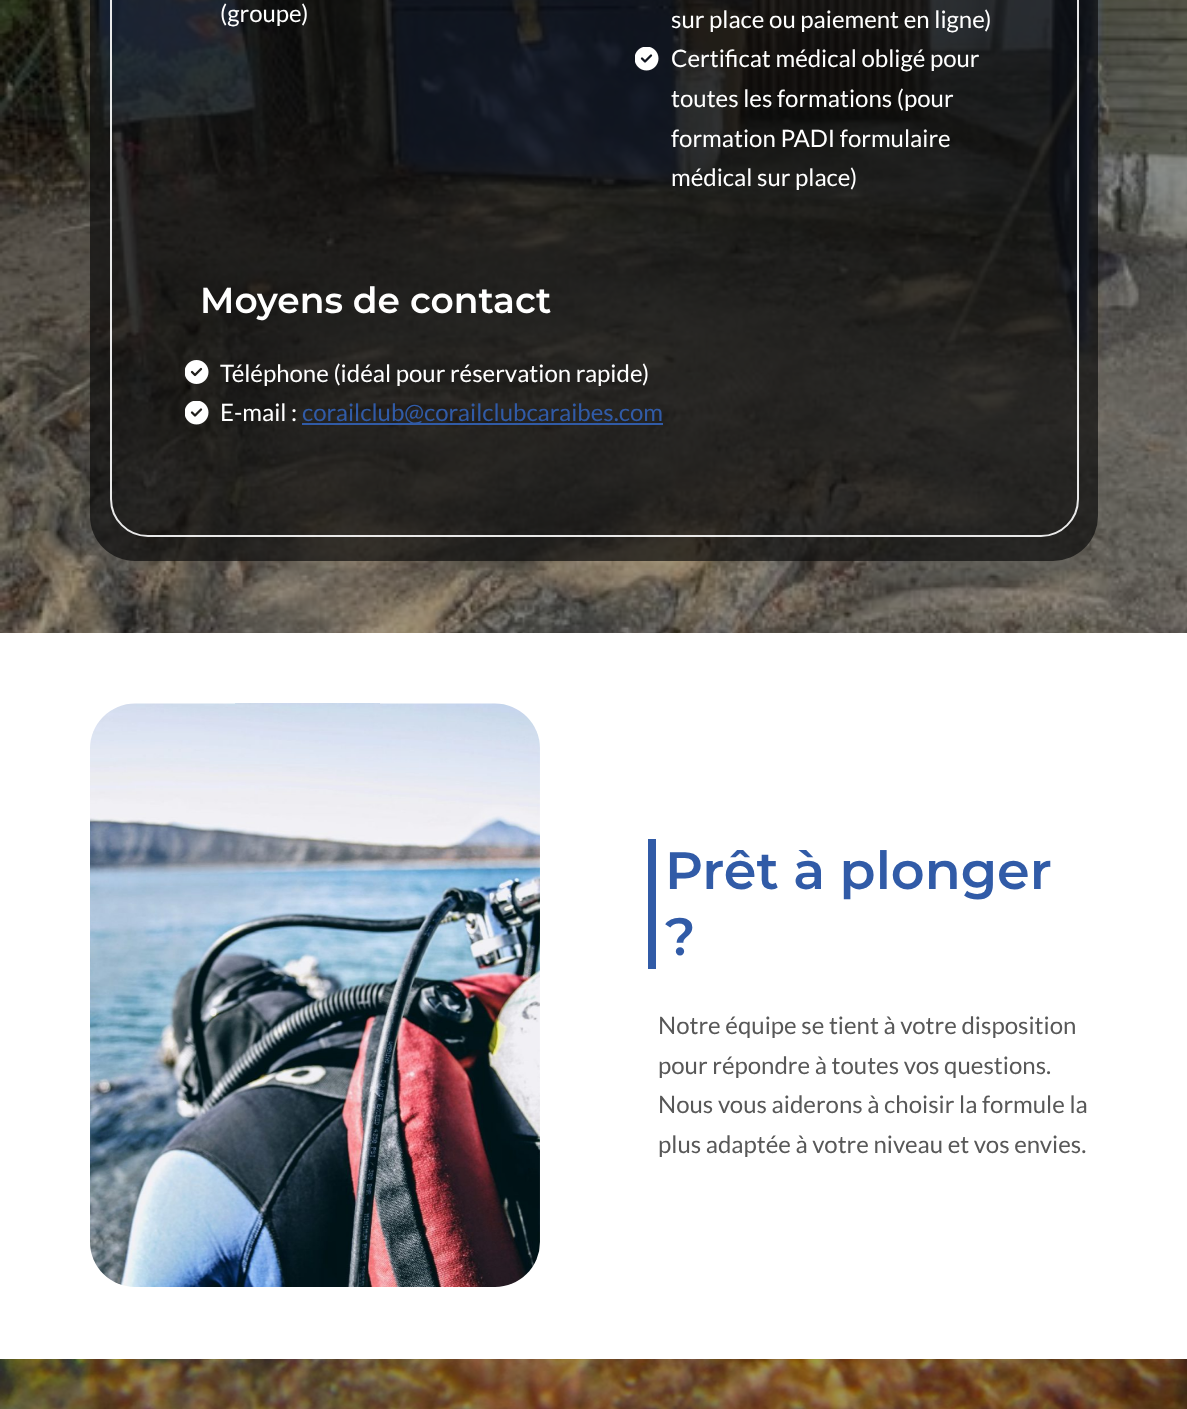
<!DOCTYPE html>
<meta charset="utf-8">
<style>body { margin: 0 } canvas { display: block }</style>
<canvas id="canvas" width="1187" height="1409"></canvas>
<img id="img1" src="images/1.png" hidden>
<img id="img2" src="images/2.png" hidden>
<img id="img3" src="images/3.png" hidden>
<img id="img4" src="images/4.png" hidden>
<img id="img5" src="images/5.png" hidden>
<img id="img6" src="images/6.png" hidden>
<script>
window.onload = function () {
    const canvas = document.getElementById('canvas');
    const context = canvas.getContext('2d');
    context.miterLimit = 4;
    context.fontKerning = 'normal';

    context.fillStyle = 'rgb(255, 255, 255)';
    context.fillRect(0, 0, 1187, 1409);
    context.drawImage(document.getElementById('img1'), 0, 0, 1187, 633);
    context.fillStyle = 'rgba(12, 12, 12, 0.7)';
    context.beginPath();
    context.roundRect(90, -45, 1008, 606, 45);
    context.fill();
    context.beginPath();
    context.roundRect(111, -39, 967, 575, 37);
    context.strokeStyle = 'rgba(255, 255, 255, 0.9)';
    context.lineWidth = 2;
    context.stroke();
    context.drawImage(document.getElementById('img2'), 635, 47, 24, 24);
    context.drawImage(document.getElementById('img3'), 185, 360, 24, 24);
    context.drawImage(document.getElementById('img4'), 185, 401, 24, 24);
    context.fillStyle = 'rgb(49, 91, 167)';
    context.fillRect(302, 423, 361, 2);
    context.drawImage(document.getElementById('img5'), 90, 703, 450, 584);
    context.fillRect(648, 839, 8, 130);
    context.drawImage(document.getElementById('img6'), 0, 1359, 1187, 50);
    context.font = '24px Lato';
    context.fillStyle = 'rgb(255, 255, 255)';
    context.fillText('(groupe)', 220, 22);
    context.fillText('sur place ou paiement en ligne)', 671, 28);
    context.fillText('Certificat médical obligé pour', 671, 67);
    context.fillText('toutes les formations (pour', 671, 107);
    context.fillText('formation PADI formulaire', 671, 147);
    context.fillText('médical sur place)', 671, 186);
    context.font = '600 36px Montserrat';
    context.fillText('Moyens de contact', 200, 313);
    context.font = '24px Lato';
    context.fillText('Téléphone (idéal pour réservation rapide)', 220, 382);
    context.fillText('E-mail :', 220, 421);
    context.fillStyle = 'rgb(49, 91, 167)';
    context.fillText('corailclub@corailclubcaraibes.com', 302, 421);
    context.font = '600 52.5px Montserrat';
    context.fillText('Prêt à plonger', 665, 889);
    context.fillText('?', 665, 955);
    context.font = '24px Lato';
    context.fillStyle = 'rgb(88, 88, 88)';
    context.fillText('Notre équipe se tient à votre disposition', 658, 1034);
    context.fillText('pour répondre à toutes vos questions.', 658, 1074);
    context.fillText('Nous vous aiderons à choisir la formule la', 658, 1113);
    context.fillText('plus adaptée à votre niveau et vos envies.', 658, 1153);
};
</script>
